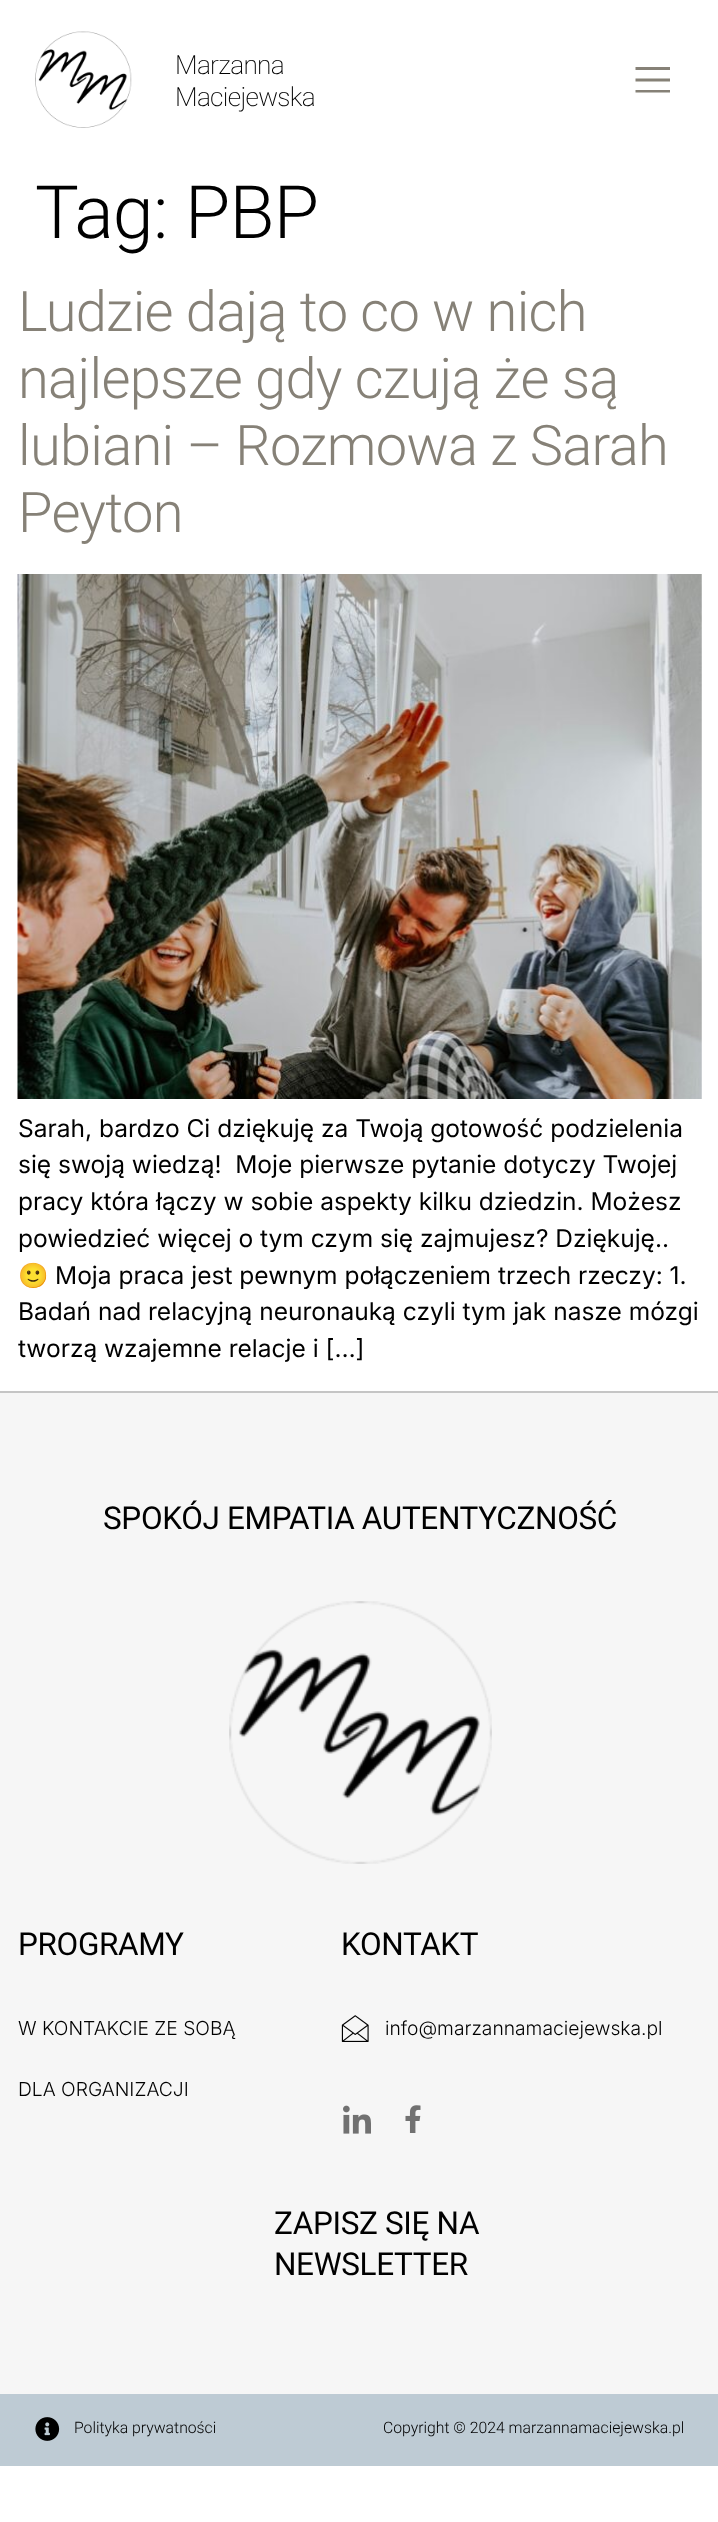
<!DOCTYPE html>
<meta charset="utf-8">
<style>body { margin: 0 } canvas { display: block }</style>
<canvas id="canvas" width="718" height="2522"></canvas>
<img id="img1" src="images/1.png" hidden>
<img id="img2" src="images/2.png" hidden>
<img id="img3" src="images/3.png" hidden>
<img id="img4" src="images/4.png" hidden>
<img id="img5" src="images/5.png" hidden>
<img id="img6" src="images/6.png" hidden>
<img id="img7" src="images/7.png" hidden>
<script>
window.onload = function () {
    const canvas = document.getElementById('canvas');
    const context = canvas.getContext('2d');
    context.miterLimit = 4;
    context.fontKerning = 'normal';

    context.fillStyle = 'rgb(255, 255, 255)';
    context.fillRect(0, 0, 718, 2522);
    context.drawImage(document.getElementById('img1'), 35, 31, 97, 97);
    context.fillStyle = 'rgb(134, 129, 119)';
    context.beginPath();
    context.moveTo(635.5, 67);
    context.lineTo(635.5, 70);
    context.lineTo(670, 70);
    context.lineTo(670, 67);
    context.closePath();
    context.moveTo(635.5, 78.5);
    context.lineTo(635.5, 81.5);
    context.lineTo(670, 81.5);
    context.lineTo(670, 78.5);
    context.closePath();
    context.moveTo(635.5, 90);
    context.lineTo(635.5, 92.5);
    context.lineTo(670, 92.5);
    context.lineTo(670, 90);
    context.closePath();
    context.fill();
    context.drawImage(document.getElementById('img2'), 17, 574, 685, 525);
    context.fillStyle = 'rgb(246, 246, 246)';
    context.fillRect(0, 1393, 718, 1001);
    context.fillStyle = 'rgb(197, 197, 197)';
    context.fillRect(0, 1391, 718, 2);
    context.drawImage(document.getElementById('img3'), 229, 1601, 263, 263);
    context.drawImage(document.getElementById('img4'), 341, 2015, 28, 27);
    context.drawImage(document.getElementById('img5'), 343, 2105, 28, 29);
    context.drawImage(document.getElementById('img6'), 405, 2105, 16, 28);
    context.fillStyle = 'rgb(190, 203, 212)';
    context.fillRect(0, 2394, 718, 72);
    context.drawImage(document.getElementById('img7'), 35, 2417, 25, 24);
    context.letterSpacing = '-0.7px';
    context.font = '200 26.25px Roboto';
    context.fillStyle = 'rgb(0, 0, 0)';
    context.fillText('Marzanna', 175, 74);
    context.fillText('Maciejewska', 175, 106);
    context.font = '300 73.5px Roboto';
    context.fillText('Tag: PBP', 35, 238);
    context.font = '300 56px Roboto';
    context.fillStyle = 'rgb(134, 129, 119)';
    context.fillText('Ludzie dają to co w nich', 18, 331);
    context.fillText('najlepsze gdy czują że są', 18, 398);
    context.fillText('lubiani – Rozmowa z Sarah', 18, 465);
    context.fillText('Peyton', 18, 532);
    context.letterSpacing = '0px';
    context.font = '24.5px Inter';
    context.fillStyle = 'rgb(0, 0, 0)';
    context.fillText('Sarah, bardzo Ci dziękuję za Twoją gotowość podzielenia', 18, 1137);
    context.fillText('się swoją wiedzą!  Moje pierwsze pytanie dotyczy Twojej', 18, 1173);
    context.fillText('pracy która łączy w sobie aspekty kilku dziedzin. Możesz', 18, 1210);
    context.fillText('powiedzieć więcej o tym czym się zajmujesz? Dziękuję..', 18, 1247);
    context.font = '24.5px Noto Color Emoji';
    context.fillText('🙂', 18, 1284);
    context.font = '24.5px Inter';
    context.fillText('Moja praca jest pewnym połączeniem trzech rzeczy: 1.', 55, 1284);
    context.fillText('Badań nad relacyjną neuronauką czyli tym jak nasze mózgi', 18, 1320);
    context.fillText('tworzą wzajemne relacje i […]', 18, 1357);
    context.letterSpacing = '-0.35px';
    context.font = '31.5px Roboto';
    context.fillText('SPOKÓJ EMPATIA AUTENTYCZNOŚĆ', 103, 1529);
    context.fillText('PROGRAMY', 18, 1955);
    context.letterSpacing = '0px';
    context.font = '300 19.25px Inter';
    context.fillText('W KONTAKCIE ZE SOBĄ', 18, 2035);
    context.fillText('DLA ORGANIZACJI', 18, 2096);
    context.letterSpacing = '-0.35px';
    context.font = '31.5px Roboto';
    context.fillText('KONTAKT', 341, 1955);
    context.letterSpacing = '0px';
    context.font = '300 19.25px Inter';
    context.fillText('info@marzannamaciejewska.pl', 385, 2035);
    context.letterSpacing = '-0.35px';
    context.font = '31.5px Roboto';
    context.fillText('ZAPISZ SIĘ NA', 274, 2234);
    context.fillText('NEWSLETTER', 274, 2275);
    context.letterSpacing = '0px';
    context.font = '300 15.75px Roboto';
    context.fillText('Polityka prywatności', 74, 2433);
    context.fillText('Copyright © 2024 marzannamaciejewska.pl', 383, 2433);
};
</script>
